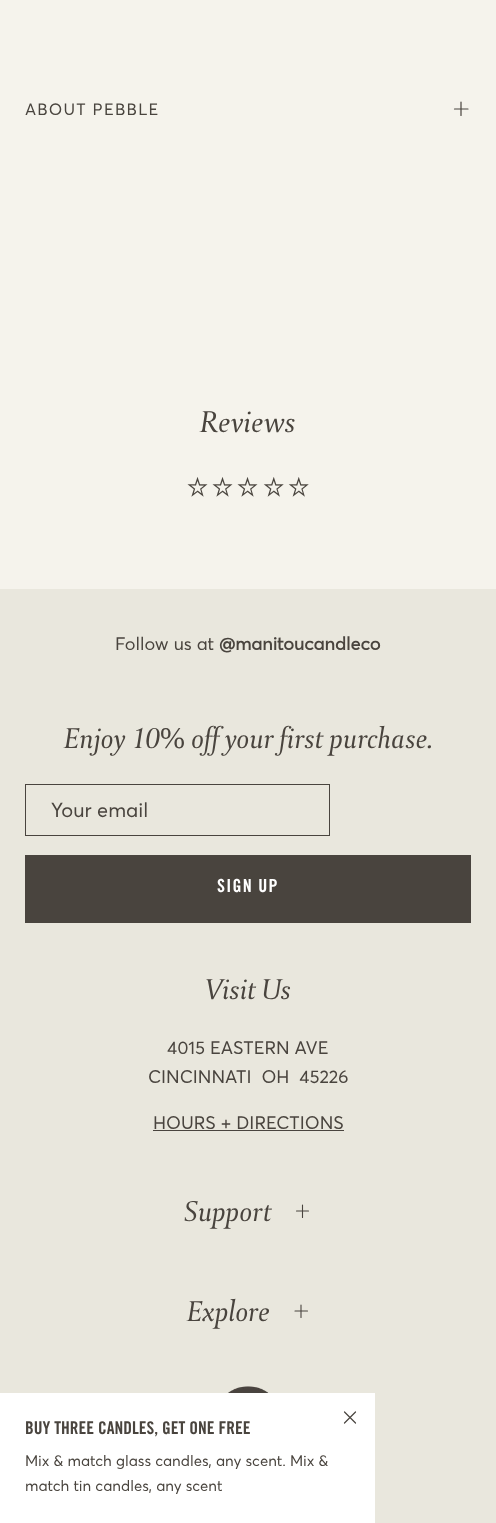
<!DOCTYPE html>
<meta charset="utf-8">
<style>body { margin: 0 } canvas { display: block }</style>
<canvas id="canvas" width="496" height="1523"></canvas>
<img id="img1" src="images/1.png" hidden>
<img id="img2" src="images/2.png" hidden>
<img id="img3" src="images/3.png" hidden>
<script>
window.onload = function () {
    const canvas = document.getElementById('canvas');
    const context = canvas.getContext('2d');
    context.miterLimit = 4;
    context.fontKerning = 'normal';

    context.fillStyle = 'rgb(245, 243, 236)';
    context.fillRect(0, 0, 496, 1523);
    context.beginPath();
    context.moveTo(454.5, 109);
    context.lineTo(468, 109);
    context.moveTo(461, 102);
    context.lineTo(461, 115.5);
    context.strokeStyle = 'rgb(73, 68, 62)';
    context.lineWidth = 1.2;
    context.lineCap = 'round';
    context.lineJoin = 'round';
    context.stroke();
    context.drawImage(document.getElementById('img1'), 187, 477, 21, 20);
    context.drawImage(document.getElementById('img1'), 212, 477, 21, 20);
    context.drawImage(document.getElementById('img1'), 237, 477, 21, 20);
    context.drawImage(document.getElementById('img2'), 263, 477, 21, 20);
    context.drawImage(document.getElementById('img2'), 288, 477, 21, 20);
    context.fillStyle = 'rgb(233, 231, 221)';
    context.fillRect(0, 589, 496, 934);
    context.lineWidth = 1;
    context.lineJoin = 'miter';
    context.strokeRect(25.5, 784.5, 304, 51);
    context.fillStyle = 'rgb(73, 68, 62)';
    context.fillRect(25, 855, 446, 68);
    context.fillRect(153, 1130, 191, 1);
    context.beginPath();
    context.moveTo(296.5, 1211);
    context.lineTo(308.5, 1211);
    context.moveTo(302.5, 1205);
    context.lineTo(302.5, 1217.5);
    context.lineWidth = 1.1;
    context.lineJoin = 'round';
    context.stroke();
    context.beginPath();
    context.moveTo(295, 1311);
    context.lineTo(307.5, 1311);
    context.moveTo(301, 1305);
    context.lineTo(301, 1317.5);
    context.stroke();
    context.drawImage(document.getElementById('img3'), 228, 1386, 41, 7);
    context.fillStyle = 'rgb(255, 255, 255)';
    context.fillRect(0, 1393, 375, 130);
    context.beginPath();
    context.moveTo(355.5, 1412);
    context.lineTo(344.5, 1423);
    context.moveTo(355.5, 1423);
    context.lineTo(344.5, 1412);
    context.lineWidth = 1.2;
    context.stroke();
    context.letterSpacing = '1.25px';
    context.font = '16.25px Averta';
    context.fillStyle = 'rgb(73, 68, 62)';
    context.fillText('ABOUT PEBBLE', 25, 115);
    context.letterSpacing = '0px';
    context.font = 'italic 31.5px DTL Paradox';
    context.fillText('Reviews', 200, 432);
    context.font = '18px Averta';
    context.fillText('Follow us at', 115, 650);
    context.font = 'bold 18px Averta';
    context.fillText('@manitoucandleco', 219, 650);
    context.font = 'italic 30px DTL Paradox';
    context.fillText('Enjoy 10', 64, 748);
    context.font = '30px Liberation Serif';
    context.fillText('%', 160, 748);
    context.font = 'italic 30px DTL Paradox';
    context.fillText('off your first purchase.', 191, 748);
    context.font = '20px Averta';
    context.fillText('Your email', 51, 817);
    context.letterSpacing = '1.25px';
    context.font = 'bold 18px Trade Gothic';
    context.fillStyle = 'rgb(255, 255, 255)';
    context.fillText('SIGN UP', 217, 892);
    context.letterSpacing = '0px';
    context.font = 'italic 30px DTL Paradox';
    context.fillStyle = 'rgb(73, 68, 62)';
    context.fillText('Visit Us', 206, 999);
    context.font = '18px Averta';
    context.fillText('4015 EASTERN AVE', 167, 1054);
    context.wordSpacing = '5px';
    context.fillText('CINCINNATI OH 45226', 148, 1083);
    context.wordSpacing = '0px';
    context.fillText('HOURS + DIRECTIONS', 153, 1129);
    context.font = 'italic 30px DTL Paradox';
    context.fillText('Support', 184, 1221);
    context.fillText('Explore', 187, 1321);
    context.font = 'bold 17.5px Trade Gothic';
    context.fillText('BUY THREE CANDLES, GET ONE FREE', 25, 1434);
    context.font = '15px Averta';
    context.fillText('Mix & match glass candles, any scent. Mix &', 25, 1466);
    context.fillText('match tin candles, any scent', 25, 1491);
};
</script>
